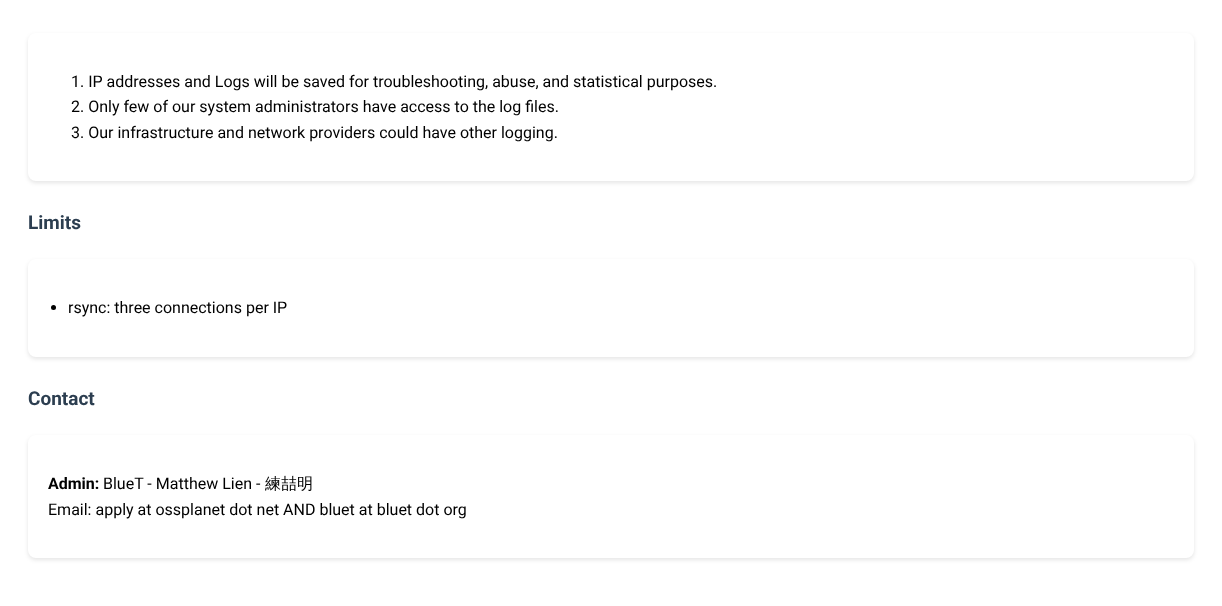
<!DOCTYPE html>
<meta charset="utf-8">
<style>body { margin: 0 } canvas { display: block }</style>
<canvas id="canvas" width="1222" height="606"></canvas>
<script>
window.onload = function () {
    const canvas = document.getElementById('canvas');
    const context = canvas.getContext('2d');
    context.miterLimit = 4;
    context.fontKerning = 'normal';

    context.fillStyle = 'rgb(255, 255, 255)';
    context.fillRect(0, 0, 1222, 606);
    context.fillStyle = 'rgba(0, 0, 0, 0.1)';
    context.filter = 'blur(2px)';
    context.beginPath();
    context.roundRect(28, 35, 1166, 148, 8);
    context.fill();
    context.filter = 'none';
    context.fillStyle = 'rgb(255, 255, 255)';
    context.beginPath();
    context.roundRect(28, 33, 1166, 148, 8);
    context.fill();
    context.fillStyle = 'rgba(0, 0, 0, 0.1)';
    context.filter = 'blur(2px)';
    context.beginPath();
    context.roundRect(28, 261, 1166, 98, 8);
    context.fill();
    context.filter = 'none';
    context.fillStyle = 'rgb(255, 255, 255)';
    context.beginPath();
    context.roundRect(28, 259, 1166, 98, 8);
    context.fill();
    context.fillStyle = 'rgb(0, 0, 0)';
    context.beginPath();
    context.arc(53.5, 307.5, 2.5, 0, 2 * Math.PI);
    context.fill();
    context.fillStyle = 'rgba(0, 0, 0, 0.1)';
    context.filter = 'blur(2px)';
    context.beginPath();
    context.roundRect(28, 437, 1166, 123, 8);
    context.fill();
    context.filter = 'none';
    context.fillStyle = 'rgb(255, 255, 255)';
    context.beginPath();
    context.roundRect(28, 435, 1166, 123, 8);
    context.fill();
    context.font = '16px Roboto';
    context.fillStyle = 'rgb(0, 0, 0)';
    context.fillText('1. IP addresses and Logs will be saved for troubleshooting, abuse, and statistical purposes.', 71, 87);
    context.fillText('2. Only few of our system administrators have access to the log files.', 71, 112);
    context.fillText('3. Our infrastructure and network providers could have other logging.', 71, 138);
    context.font = 'bold 19px Roboto';
    context.fillStyle = 'rgb(44, 62, 80)';
    context.fillText('Limits', 28, 229);
    context.font = '16px Roboto';
    context.fillStyle = 'rgb(0, 0, 0)';
    context.fillText('rsync: three connections per IP', 68, 313);
    context.font = 'bold 19px Roboto';
    context.fillStyle = 'rgb(44, 62, 80)';
    context.fillText('Contact', 28, 405);
    context.font = 'bold 16px Roboto';
    context.fillStyle = 'rgb(0, 0, 0)';
    context.fillText('Admin:', 48, 489);
    context.font = '16px Roboto';
    context.fillText('BlueT - Matthew Lien -', 103, 489);
    context.font = '500 16px WenQuanYi Zen Hei';
    context.fillText('練喆明', 265, 489);
    context.font = '16px Roboto';
    context.fillText('Email: apply at ossplanet dot net AND bluet at bluet dot org', 48, 515);
};
</script>
